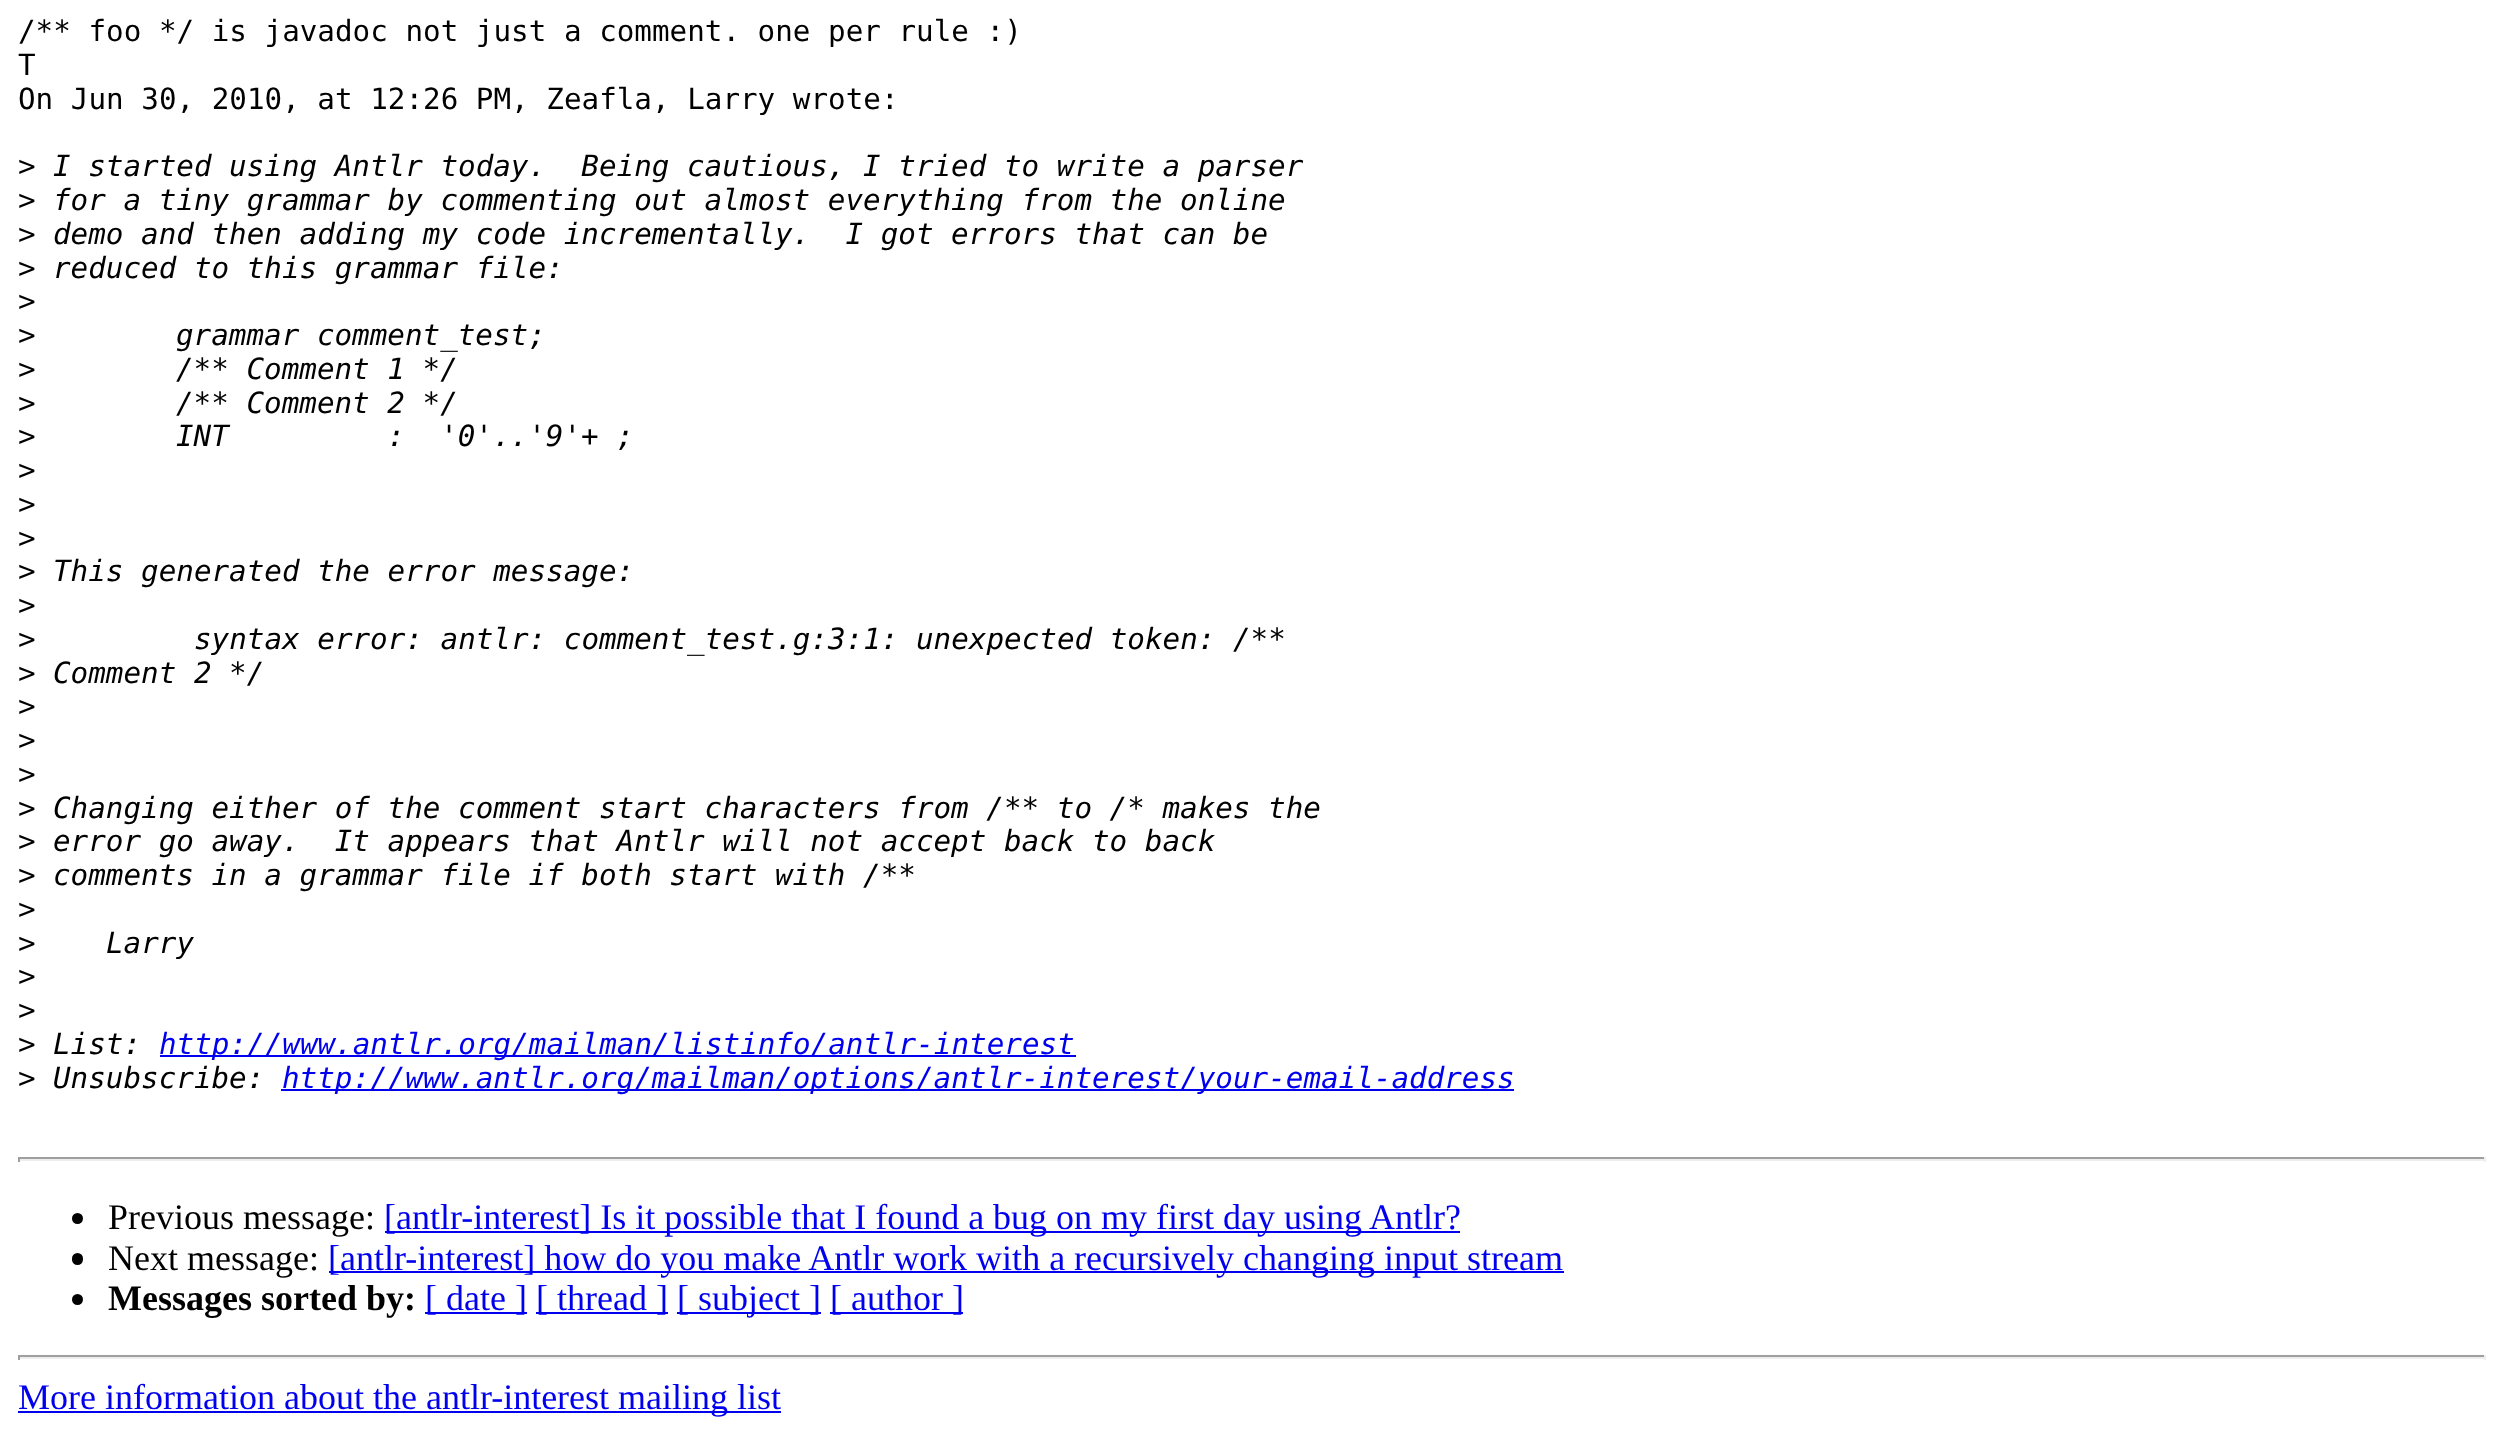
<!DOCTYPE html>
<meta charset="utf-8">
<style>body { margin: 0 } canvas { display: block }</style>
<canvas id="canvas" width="2503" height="1434"></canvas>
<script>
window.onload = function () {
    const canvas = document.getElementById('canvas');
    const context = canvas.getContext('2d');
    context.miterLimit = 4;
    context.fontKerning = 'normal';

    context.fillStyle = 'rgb(255, 255, 255)';
    context.fillRect(0, 0, 2503, 1434);
    context.fillStyle = 'rgb(0, 0, 238)';
    context.fillRect(160, 1055, 916, 2);
    context.fillRect(281, 1089, 1233, 2);
    context.fillStyle = 'rgb(159, 159, 159)';
    context.fillRect(18, 1157, 2468, 2);
    context.fillStyle = 'rgb(238, 238, 238)';
    context.fillRect(2484, 1157, 2, 5);
    context.fillRect(18, 1159, 2468, 2);
    context.fillStyle = 'rgb(159, 159, 159)';
    context.fillRect(18, 1157, 2, 5);
    context.fillStyle = 'rgb(0, 0, 0)';
    context.beginPath();
    context.arc(77.5, 1218.5, 5.5, 0, 2 * Math.PI);
    context.fill();
    context.fillStyle = 'rgb(0, 0, 238)';
    context.fillRect(385, 1231, 1075, 2);
    context.fillStyle = 'rgb(0, 0, 0)';
    context.beginPath();
    context.roundRect(72, 1253, 11, 12, 5.5);
    context.fill();
    context.fillStyle = 'rgb(0, 0, 238)';
    context.fillRect(329, 1271, 1235, 2);
    context.fillStyle = 'rgb(0, 0, 0)';
    context.beginPath();
    context.arc(77.5, 1299.5, 5.5, 0, 2 * Math.PI);
    context.fill();
    context.fillStyle = 'rgb(0, 0, 238)';
    context.fillRect(425, 1312, 102, 2);
    context.fillRect(536, 1312, 132, 2);
    context.fillRect(677, 1312, 144, 2);
    context.fillRect(830, 1312, 133, 2);
    context.fillStyle = 'rgb(159, 159, 159)';
    context.fillRect(18, 1355, 2468, 2);
    context.fillStyle = 'rgb(238, 238, 238)';
    context.fillRect(2484, 1355, 2, 5);
    context.fillRect(18, 1357, 2468, 2);
    context.fillStyle = 'rgb(159, 159, 159)';
    context.fillRect(18, 1355, 2, 5);
    context.fillStyle = 'rgb(0, 0, 238)';
    context.fillRect(18, 1411, 763, 2);
    context.font = '29.25px DejaVu Sans Mono';
    context.fillStyle = 'rgb(0, 0, 0)';
    context.fillText('/** foo */ is javadoc not just a comment. one per rule :)', 18, 41);
    context.fillText('T', 18, 75);
    context.fillText('On Jun 30, 2010, at 12:26 PM, Zeafla, Larry wrote:', 18, 109);
    context.fillText('>', 18, 176);
    context.font = 'italic 29.25px DejaVu Sans Mono';
    context.fillText('I started using Antlr today.  Being cautious, I tried to write a parser', 53, 176);
    context.font = '29.25px DejaVu Sans Mono';
    context.fillText('>', 18, 210);
    context.font = 'italic 29.25px DejaVu Sans Mono';
    context.fillText('for a tiny grammar by commenting out almost everything from the online', 53, 210);
    context.font = '29.25px DejaVu Sans Mono';
    context.fillText('>', 18, 244);
    context.font = 'italic 29.25px DejaVu Sans Mono';
    context.fillText('demo and then adding my code incrementally.  I got errors that can be', 53, 244);
    context.font = '29.25px DejaVu Sans Mono';
    context.fillText('>', 18, 278);
    context.font = 'italic 29.25px DejaVu Sans Mono';
    context.fillText('reduced to this grammar file:', 53, 278);
    context.font = '29.25px DejaVu Sans Mono';
    context.fillText('>', 18, 311);
    context.fillText('>', 18, 345);
    context.font = 'italic 29.25px DejaVu Sans Mono';
    context.fillText('grammar comment_test;', 176, 345);
    context.font = '29.25px DejaVu Sans Mono';
    context.fillText('>', 18, 379);
    context.font = 'italic 29.25px DejaVu Sans Mono';
    context.fillText('/** Comment 1 */', 176, 379);
    context.font = '29.25px DejaVu Sans Mono';
    context.fillText('>', 18, 413);
    context.font = 'italic 29.25px DejaVu Sans Mono';
    context.fillText('/** Comment 2 */', 176, 413);
    context.font = '29.25px DejaVu Sans Mono';
    context.fillText('>', 18, 446);
    context.font = 'italic 29.25px DejaVu Sans Mono';
    context.fillText('INT         :  \'0\'..\'9\'+ ;', 176, 446);
    context.font = '29.25px DejaVu Sans Mono';
    context.fillText('>', 18, 480);
    context.fillText('>', 18, 514);
    context.fillText('>', 18, 548);
    context.fillText('>', 18, 581);
    context.font = 'italic 29.25px DejaVu Sans Mono';
    context.fillText('This generated the error message:', 53, 581);
    context.font = '29.25px DejaVu Sans Mono';
    context.fillText('>', 18, 615);
    context.fillText('>', 18, 649);
    context.font = 'italic 29.25px DejaVu Sans Mono';
    context.fillText('syntax error: antlr: comment_test.g:3:1: unexpected token: /**', 194, 649);
    context.font = '29.25px DejaVu Sans Mono';
    context.fillText('>', 18, 683);
    context.font = 'italic 29.25px DejaVu Sans Mono';
    context.fillText('Comment 2 */', 53, 683);
    context.font = '29.25px DejaVu Sans Mono';
    context.fillText('>', 18, 716);
    context.fillText('>', 18, 750);
    context.fillText('>', 18, 784);
    context.fillText('>', 18, 818);
    context.font = 'italic 29.25px DejaVu Sans Mono';
    context.fillText('Changing either of the comment start characters from /** to /* makes the', 53, 818);
    context.font = '29.25px DejaVu Sans Mono';
    context.fillText('>', 18, 851);
    context.font = 'italic 29.25px DejaVu Sans Mono';
    context.fillText('error go away.  It appears that Antlr will not accept back to back', 53, 851);
    context.font = '29.25px DejaVu Sans Mono';
    context.fillText('>', 18, 885);
    context.font = 'italic 29.25px DejaVu Sans Mono';
    context.fillText('comments in a grammar file if both start with /**', 53, 885);
    context.font = '29.25px DejaVu Sans Mono';
    context.fillText('>', 18, 919);
    context.fillText('>', 18, 953);
    context.font = 'italic 29.25px DejaVu Sans Mono';
    context.fillText('Larry', 106, 953);
    context.font = '29.25px DejaVu Sans Mono';
    context.fillText('>', 18, 986);
    context.fillText('>', 18, 1020);
    context.fillText('>', 18, 1054);
    context.font = 'italic 29.25px DejaVu Sans Mono';
    context.fillText('List:', 53, 1054);
    context.fillStyle = 'rgb(0, 0, 238)';
    context.fillText('http://www.antlr.org/mailman/listinfo/antlr-interest', 159, 1054);
    context.font = '29.25px DejaVu Sans Mono';
    context.fillStyle = 'rgb(0, 0, 0)';
    context.fillText('>', 18, 1088);
    context.font = 'italic 29.25px DejaVu Sans Mono';
    context.fillText('Unsubscribe:', 53, 1088);
    context.fillStyle = 'rgb(0, 0, 238)';
    context.fillText('http://www.antlr.org/mailman/options/antlr-interest/your-email-address', 282, 1088);
    context.font = '36px Liberation Serif';
    context.fillStyle = 'rgb(0, 0, 0)';
    context.fillText('Previous message:', 108, 1229);
    context.fillStyle = 'rgb(0, 0, 238)';
    context.fillText('[antlr-interest] Is it possible that I found a bug on my first day using Antlr?', 384, 1229);
    context.fillStyle = 'rgb(0, 0, 0)';
    context.fillText('Next message:', 108, 1270);
    context.fillStyle = 'rgb(0, 0, 238)';
    context.fillText('[antlr-interest] how do you make Antlr work with a recursively changing input stream', 328, 1270);
    context.font = 'bold 36px Liberation Serif';
    context.fillStyle = 'rgb(0, 0, 0)';
    context.fillText('Messages sorted by:', 108, 1310);
    context.font = '36px Liberation Serif';
    context.fillStyle = 'rgb(0, 0, 238)';
    context.fillText('[ date ]', 425, 1310);
    context.fillText('[ thread ]', 536, 1310);
    context.fillText('[ subject ]', 677, 1310);
    context.fillText('[ author ]', 830, 1310);
    context.fillText('More information about the antlr-interest mailing list', 18, 1409);
};
</script>
